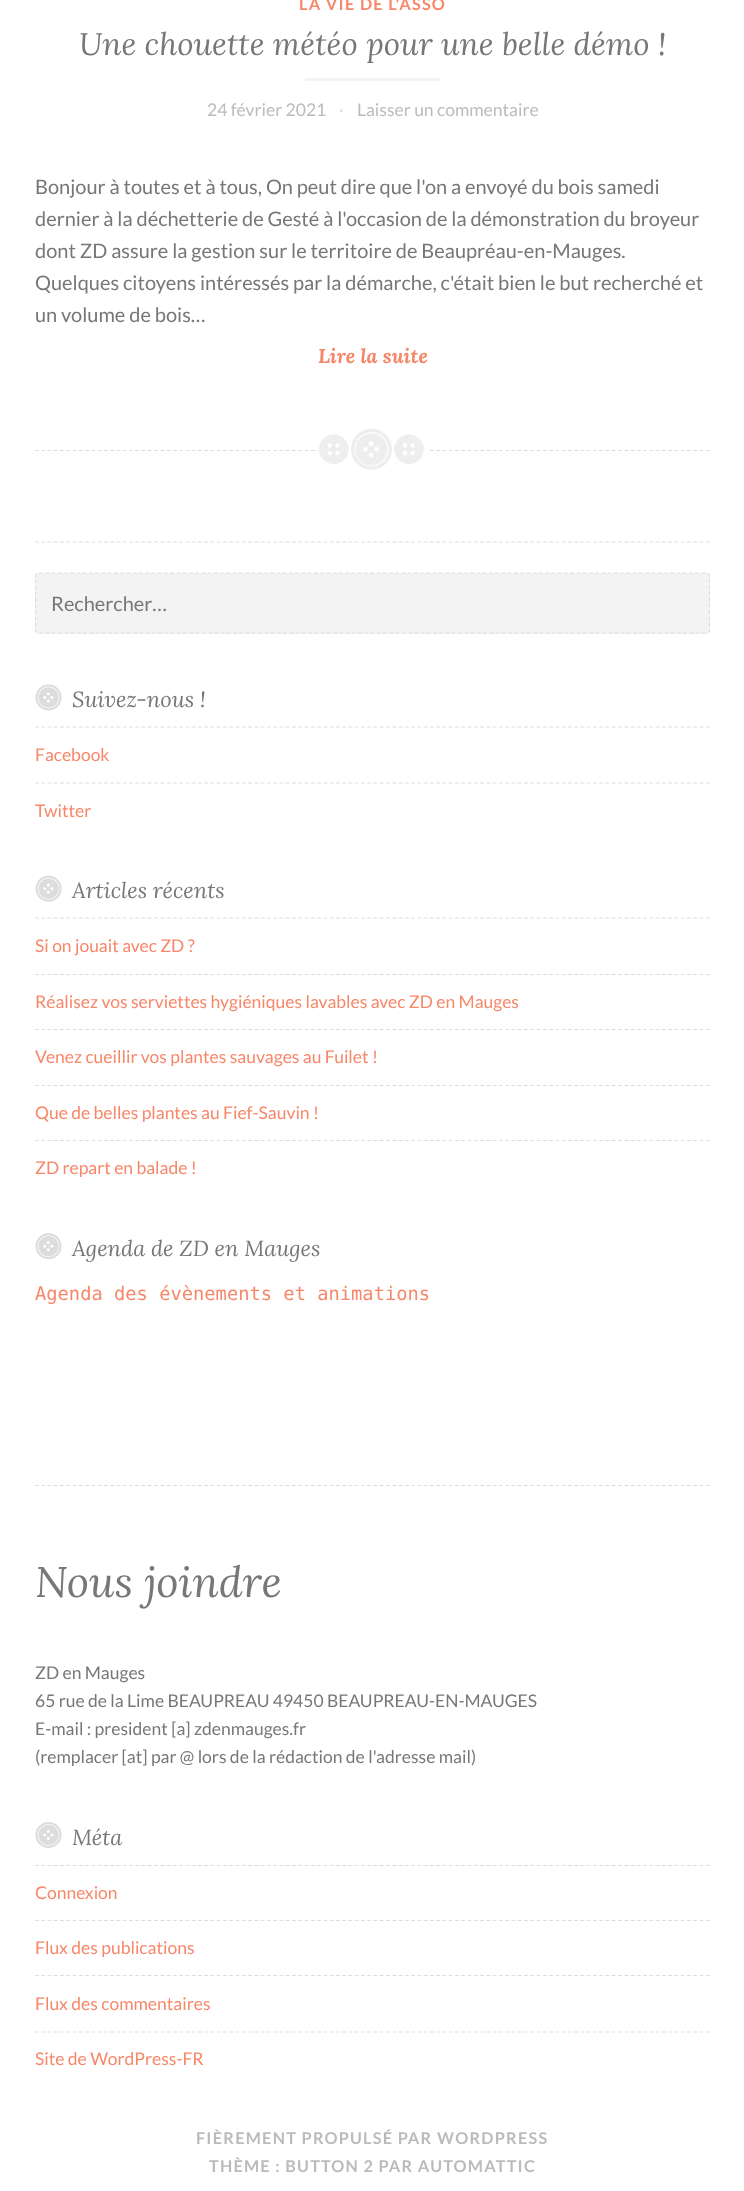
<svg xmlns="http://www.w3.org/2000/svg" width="744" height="2191">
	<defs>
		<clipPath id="clip1"><rect x="35" y="543" width="675" height="818" /></clipPath>
	</defs>
	<rect width="100%" height="100%" fill="#FFFFFF" />
	<path d="M35 450.5H710" fill="none" stroke="#DDDDDD" stroke-width="1.2" stroke-dasharray="3.75 2.52" />
	<text x="299" y="10" font-family="Lato" font-size="16.25" font-weight="700" letter-spacing="1.25" fill="#F78769">LA VIE DE L'ASSO</text>
	<text x="79" y="55" font-family="Lora" font-size="31.25" font-style="italic" fill="#777777">Une chouette météo pour une belle démo !</text>
	<rect x="305" y="78" width="135" height="3" fill="#F3F3F3" />
	<text x="207" y="116" font-family="Lato" font-size="17.5" fill="#BBBBBB">24 février 2021</text>
	<text x="339" y="116" font-family="Lato" font-size="17.5" fill="#DDDDDD">·</text>
	<text x="357" y="116" font-family="Lato" font-size="17.5" fill="#BBBBBB">Laisser un commentaire</text>
	<g font-family="Lato" font-size="20" fill="#777777">
		<text x="35" y="194">Bonjour à toutes et à tous, On peut dire que l'on a envoyé du bois samedi</text>
		<text x="35" y="226">dernier à la déchetterie de Gesté à l'occasion de la démonstration du broyeur</text>
		<text x="35" y="258">dont ZD assure la gestion sur le territoire de Beaupréau-en-Mauges.</text>
		<text x="35" y="290">Quelques citoyens intéressés par la démarche, c'était bien le but recherché et</text>
		<text x="35" y="322">un volume de bois…</text>
	</g>
	<text x="318" y="363" font-family="Lora" font-size="20" font-weight="700" font-style="italic" fill="#F78769">Lire la suite</text>
	<rect x="318" y="449" width="110" height="3" fill="#FFFFFF" />
	<image x="319" y="428" width="105" height="42" href="assets/img1.png" />
	<path d="M35 542H710" fill="none" stroke="#DDDDDD" stroke-width="1.2" stroke-dasharray="3.75 2.52" />
	<rect x="35" y="573" width="675" height="61" rx="4" fill="#F3F3F3" />
	<g clip-path="url(#clip1)">
		<path d="M39 573H706C708 573 709.5 574.5 709.5 576V630C709.5 631.5 708 633 706 633H39C37 633 35.5 631.5 35.5 630V576C35.5 574.5 37 573 39 573Z" fill="none" stroke="#DDDDDD" stroke-width="1.2" stroke-dasharray="3.75 2.5" />
	</g>
	<text x="51" y="611" font-family="Lato" font-size="20" fill="#777777">Rechercher…</text>
	<image x="35" y="684" width="27" height="27" href="assets/img2.png" />
	<text x="72" y="707" font-family="Lora" font-size="21.9" font-style="italic" fill="#777777">Suivez-nous !</text>
	<path d="M35 727H710" fill="none" stroke="#DDDDDD" stroke-width="1.2" stroke-dasharray="3.75 2.52" />
	<text x="35" y="761" font-family="Lato" font-size="17.5" fill="#F78769">Facebook</text>
	<path d="M35 783H710" fill="none" stroke="#DDDDDD" stroke-width="1.2" stroke-dasharray="3.75 2.52" />
	<text x="35" y="817" font-family="Lato" font-size="17.5" fill="#F78769">Twitter</text>
	<image x="35" y="875" width="27" height="27" href="assets/img3.png" />
	<text x="72" y="898" font-family="Lora" font-size="21.9" font-style="italic" fill="#777777">Articles récents</text>
	<path d="M35 918H710" fill="none" stroke="#DDDDDD" stroke-width="1.2" stroke-dasharray="3.75 2.52" />
	<text x="35" y="952" font-family="Lato" font-size="17.5" fill="#F78769">Si on jouait avec ZD ?</text>
	<path d="M35 974.5H710" fill="none" stroke="#DDDDDD" stroke-width="1.2" stroke-dasharray="3.75 2.52" />
	<text x="35" y="1008" font-family="Lato" font-size="17.5" fill="#F78769">Réalisez vos serviettes hygiéniques lavables avec ZD en Mauges</text>
	<path d="M35 1029.5H710" fill="none" stroke="#DDDDDD" stroke-width="1.2" stroke-dasharray="3.75 2.52" />
	<text x="35" y="1063" font-family="Lato" font-size="17.5" fill="#F78769">Venez cueillir vos plantes sauvages au Fuilet !</text>
	<path d="M35 1085.5H710" fill="none" stroke="#DDDDDD" stroke-width="1.2" stroke-dasharray="3.75 2.52" />
	<text x="35" y="1119" font-family="Lato" font-size="17.5" fill="#F78769">Que de belles plantes au Fief-Sauvin !</text>
	<path d="M35 1140.5H710" fill="none" stroke="#DDDDDD" stroke-width="1.2" stroke-dasharray="3.75 2.52" />
	<text x="35" y="1174" font-family="Lato" font-size="17.5" fill="#F78769">ZD repart en balade !</text>
	<image x="35" y="1233" width="27" height="27" href="assets/img4.png" />
	<text x="72" y="1256" font-family="Lora" font-size="21.9" font-style="italic" fill="#777777">Agenda de ZD en Mauges</text>
	<text x="35" y="1300" font-family="DejaVu Sans Mono" font-size="18.75" fill="#F78769">Agenda des évènements et animations</text>
	<path d="M35 1485.5H710" fill="none" stroke="#DDDDDD" stroke-width="1.2" stroke-dasharray="3.75 2.52" />
	<text x="35" y="1597" font-family="Lora" font-size="42.75" font-style="italic" fill="#777777">Nous joindre</text>
	<g font-family="Lato" font-size="17.5" fill="#777777">
		<text x="35" y="1679">ZD en Mauges</text>
		<text x="35" y="1707">65 rue de la Lime BEAUPREAU 49450 BEAUPREAU-EN-MAUGES</text>
		<text x="35" y="1735">E-mail : president [a] zdenmauges.fr</text>
		<text x="35" y="1763">(remplacer [at] par @ lors de la rédaction de l'adresse mail)</text>
	</g>
	<image x="35" y="1822" width="27" height="26" href="assets/img5.png" />
	<text x="72" y="1845" font-family="Lora" font-size="21.9" font-style="italic" fill="#777777">Méta</text>
	<path d="M35 1865.5H710" fill="none" stroke="#DDDDDD" stroke-width="1.2" stroke-dasharray="3.75 2.52" />
	<text x="35" y="1899" font-family="Lato" font-size="17.5" fill="#F78769">Connexion</text>
	<path d="M35 1920.5H710" fill="none" stroke="#DDDDDD" stroke-width="1.2" stroke-dasharray="3.75 2.52" />
	<text x="35" y="1954" font-family="Lato" font-size="17.5" fill="#F78769">Flux des publications</text>
	<path d="M35 1975.5H710" fill="none" stroke="#DDDDDD" stroke-width="1.2" stroke-dasharray="3.75 2.52" />
	<text x="35" y="2010" font-family="Lato" font-size="17.5" fill="#F78769">Flux des commentaires</text>
	<path d="M35 2032H710" fill="none" stroke="#DDDDDD" stroke-width="1.2" stroke-dasharray="3.75 2.52" />
	<text x="35" y="2065" font-family="Lato" font-size="17.5" fill="#F78769">Site de WordPress-FR</text>
	<g font-family="Lato" font-size="16.25" font-weight="700" letter-spacing="1.25" fill="#BBBBBB">
		<text x="196" y="2144">FIÈREMENT PROPULSÉ PAR WORDPRESS</text>
		<text x="209" y="2172">THÈME : BUTTON 2 PAR AUTOMATTIC</text>
	</g>
</svg>
